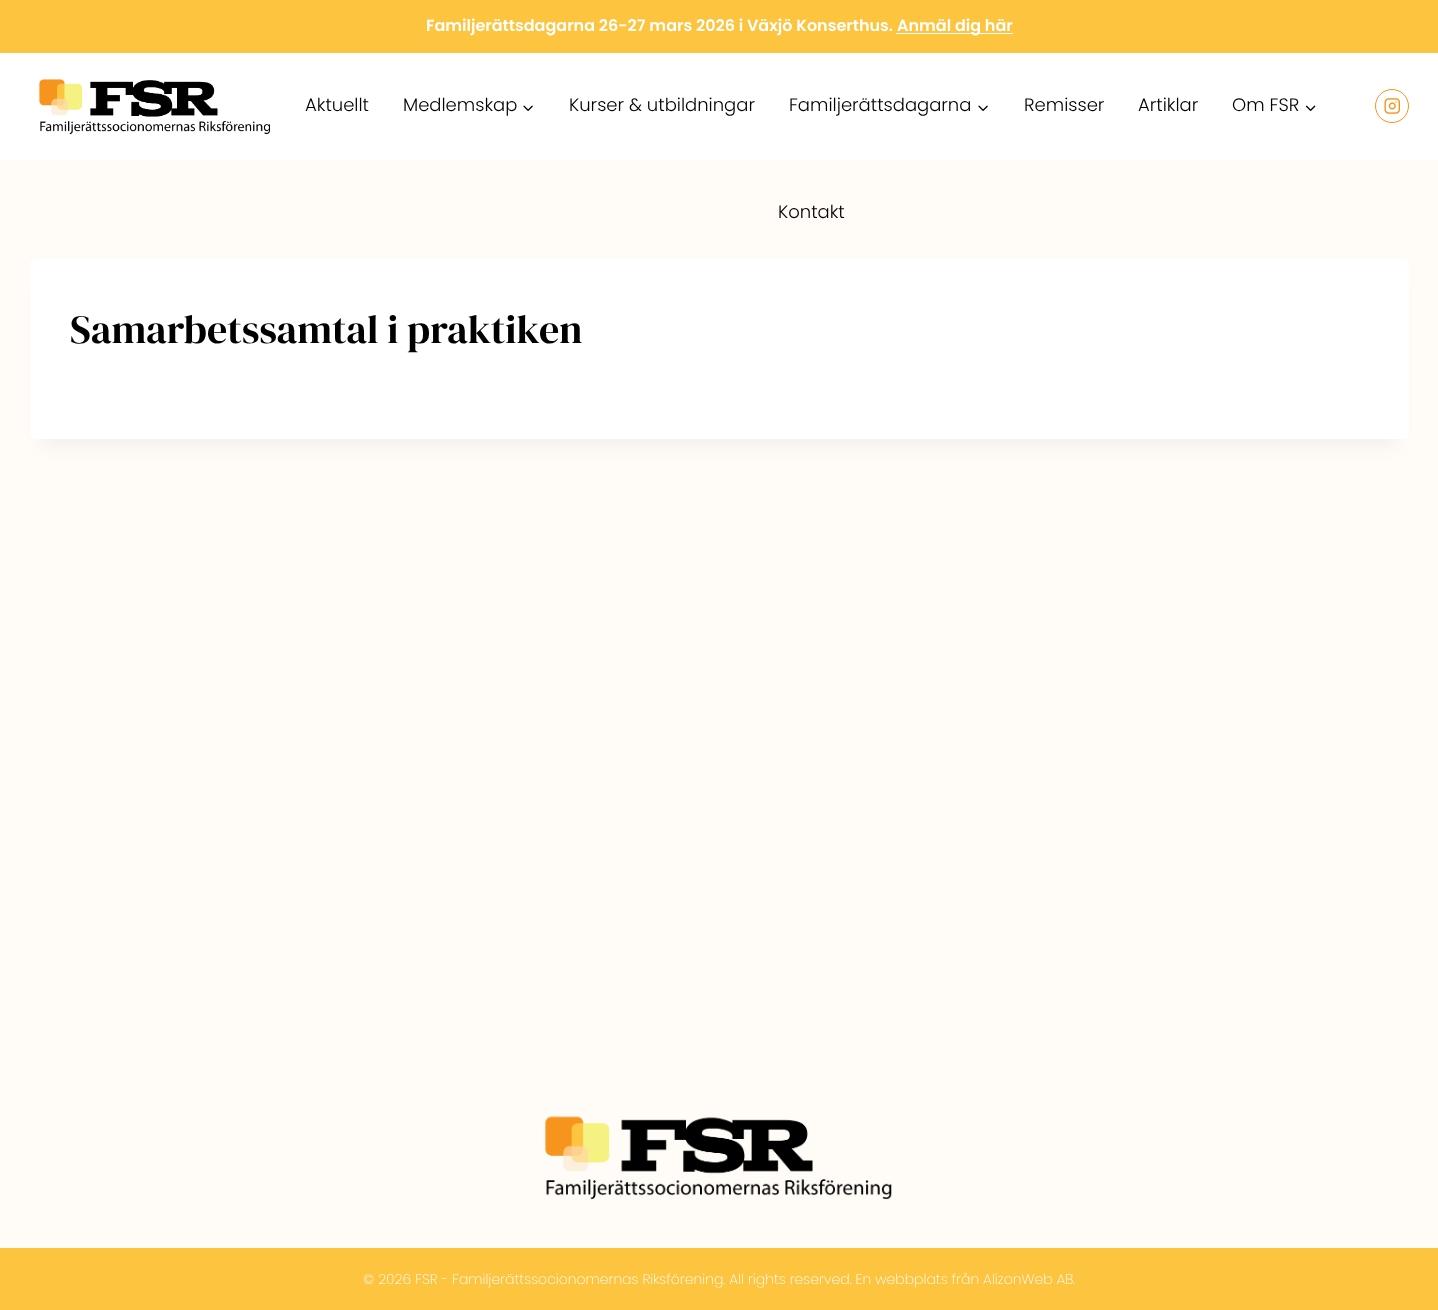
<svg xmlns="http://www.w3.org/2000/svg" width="1438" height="1310">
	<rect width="100%" height="100%" fill="#FFFBF6" />
	<rect x="0" y="0" width="1438" height="53" fill="#FCC43F" />
	<text x="426" y="31" font-family="Poppins" font-size="16" font-weight="600" fill="#FFFFFF">Familjerättsdagarna 26-27 mars 2026 i Växjö Konserthus.</text>
	<rect x="896" y="33" width="117" height="1" fill="#FFFFFF" />
	<text x="897" y="31" font-family="Poppins" font-size="16" font-weight="600" fill="#FFFFFF">Anmäl dig här</text>
	<rect x="0" y="53" width="1438" height="107" fill="#FFFFFF" />
	<image x="39" y="79" width="231" height="56" href="assets/img1.png" />
	<g font-family="Poppins" font-size="18" font-weight="300" fill="#000000">
		<text x="305" y="111">Aktuellt</text>
		<text x="403" y="111">Medlemskap</text>
	</g>
	<image x="523" y="105" width="10" height="6" href="assets/img2.png" />
	<g font-family="Poppins" font-size="18" font-weight="300" fill="#000000">
		<text x="569" y="111">Kurser &amp; utbildningar</text>
		<text x="789" y="111">Familjerättsdagarna</text>
	</g>
	<image x="978" y="105" width="10" height="6" href="assets/img2.png" />
	<g font-family="Poppins" font-size="18" font-weight="300" fill="#000000">
		<text x="1024" y="111">Remisser</text>
		<text x="1138" y="111">Artiklar</text>
		<text x="1232" y="111">Om FSR</text>
	</g>
	<image x="1305" y="105" width="11" height="6" href="assets/img3.png" />
	<text x="778" y="218" font-family="Poppins" font-size="18" font-weight="300" fill="#000000">Kontakt</text>
	<circle cx="1392" cy="106" r="16.5" fill="none" stroke="#F7941D" />
	<image x="1384" y="98" width="16" height="16" href="assets/img4.png" />
	<rect x="43" y="290" width="1353" height="155" fill="#000000" fill-opacity="0.05" filter="blur(9.5px)" />
	<rect x="30" y="259" width="1379" height="180" rx="5" fill="#FFFFFF" />
	<text x="70" y="343" font-family="DM Serif Display" font-size="40" fill="#000000">Samarbetssamtal i praktiken</text>
	<image x="545" y="1116" width="347" height="84" href="assets/img5.png" />
	<rect x="0" y="1248" width="1438" height="62" fill="#FCC43F" />
	<text x="363" y="1284" font-family="Poppins" font-size="14" font-weight="200" fill="#FFFFFF">© 2026 FSR - Familjerättssocionomernas Riksförening. All rights reserved. En webbplats från AlizonWeb AB.</text>
</svg>
